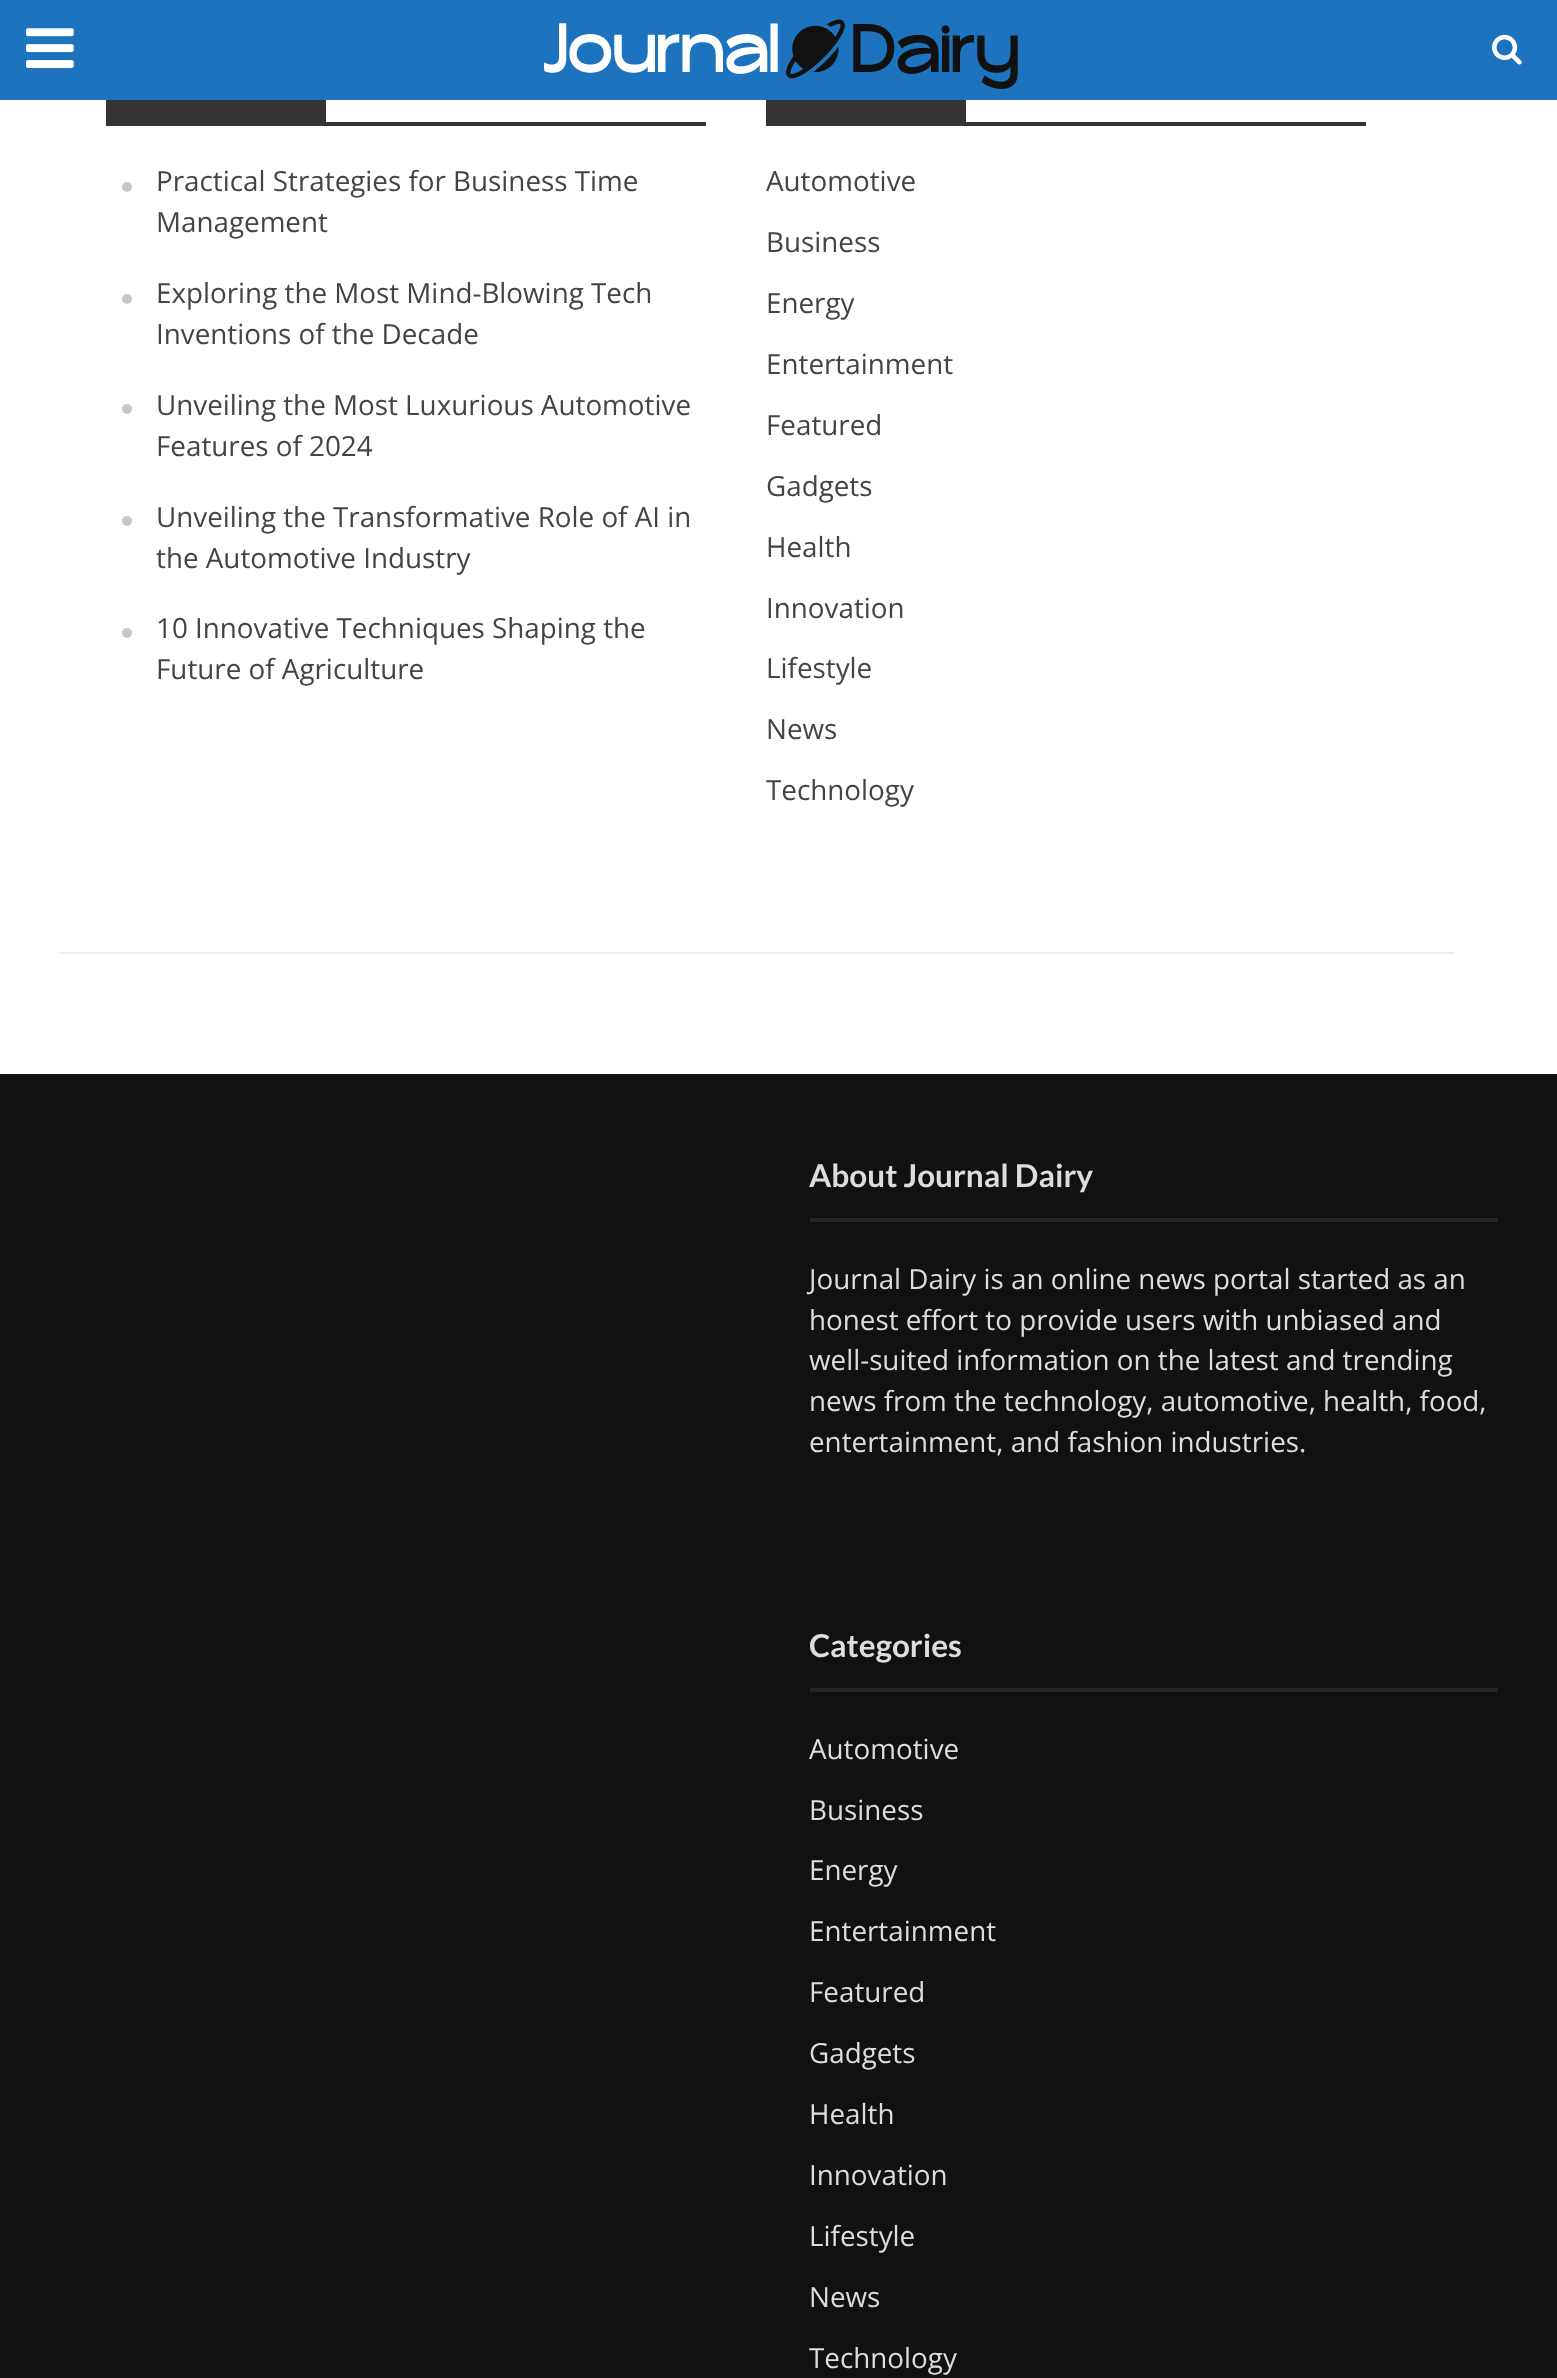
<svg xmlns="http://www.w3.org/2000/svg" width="1557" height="2378">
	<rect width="100%" height="100%" fill="#111111" />
	<rect x="-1" y="-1" width="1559" height="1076" fill="none" stroke="#161616" stroke-width="2" />
	<rect x="0" y="0" width="1557" height="100" fill="#1E73BE" />
	<image x="26" y="28" width="48" height="40" href="assets/img1.png" />
	<image x="544" y="19" width="474" height="70" href="assets/img2.png" />
	<image x="1492" y="34" width="30" height="31" href="assets/img3.png" />
	<rect x="0" y="100" width="1557" height="974" fill="#FFFFFF" />
	<rect x="60" y="952" width="1394" height="2" fill="#EEEEEE" />
	<rect x="106" y="100" width="220" height="22" fill="#333333" />
	<rect x="106" y="122" width="600" height="4" fill="#333333" />
	<circle cx="127" cy="187" r="5" fill="#C7C7C7" />
	<g font-family="Open Sans" font-size="27.8" fill="#444444">
		<text x="156" y="191">Practical Strategies for Business Time</text>
		<text x="156" y="232">Management</text>
	</g>
	<circle cx="127" cy="299" r="5" fill="#C7C7C7" />
	<g font-family="Open Sans" font-size="27.8" fill="#444444">
		<text x="156" y="303">Exploring the Most Mind-Blowing Tech</text>
		<text x="156" y="344">Inventions of the Decade</text>
	</g>
	<circle cx="127" cy="409" r="5" fill="#C7C7C7" />
	<g font-family="Open Sans" font-size="27.8" fill="#444444">
		<text x="156" y="415">Unveiling the Most Luxurious Automotive</text>
		<text x="156" y="456">Features of 2024</text>
	</g>
	<circle cx="127" cy="521" r="5" fill="#C7C7C7" />
	<g font-family="Open Sans" font-size="27.8" fill="#444444">
		<text x="156" y="527">Unveiling the Transformative Role of AI in</text>
		<text x="156" y="568">the Automotive Industry</text>
	</g>
	<circle cx="127" cy="633" r="5" fill="#C7C7C7" />
	<g font-family="Open Sans" font-size="27.8" fill="#444444">
		<text x="156" y="638">10 Innovative Techniques Shaping the</text>
		<text x="156" y="679">Future of Agriculture</text>
	</g>
	<rect x="766" y="100" width="200" height="22" fill="#333333" />
	<rect x="766" y="122" width="600" height="4" fill="#333333" />
	<g font-family="Open Sans" font-size="27.8" fill="#444444">
		<text x="766" y="191">Automotive</text>
		<text x="766" y="252">Business</text>
		<text x="766" y="313">Energy</text>
		<text x="766" y="374">Entertainment</text>
		<text x="766" y="435">Featured</text>
		<text x="766" y="496">Gadgets</text>
		<text x="766" y="557">Health</text>
		<text x="766" y="618">Innovation</text>
		<text x="766" y="678">Lifestyle</text>
		<text x="766" y="739">News</text>
		<text x="766" y="800">Technology</text>
	</g>
	<text x="809" y="1187" font-family="Lato" font-size="31.5" font-weight="700" fill="#DDDDDD">About Journal Dairy</text>
	<rect x="810" y="1218" width="688" height="4" fill="#252525" />
	<g font-family="Open Sans" font-size="27.8" fill="#DDDDDD">
		<text x="809" y="1289">Journal Dairy is an online news portal started as an</text>
		<text x="809" y="1330">honest effort to provide users with unbiased and</text>
		<text x="809" y="1370">well-suited information on the latest and trending</text>
		<text x="809" y="1411">news from the technology, automotive, health, food,</text>
		<text x="809" y="1452">entertainment, and fashion industries.</text>
	</g>
	<text x="809" y="1657" font-family="Lato" font-size="31.5" font-weight="700" fill="#DDDDDD">Categories</text>
	<rect x="810" y="1688" width="688" height="4" fill="#252525" />
	<g font-family="Open Sans" font-size="27.8" fill="#DDDDDD">
		<text x="809" y="1759">Automotive</text>
		<text x="809" y="1820">Business</text>
		<text x="809" y="1880">Energy</text>
		<text x="809" y="1941">Entertainment</text>
		<text x="809" y="2002">Featured</text>
		<text x="809" y="2063">Gadgets</text>
		<text x="809" y="2124">Health</text>
		<text x="809" y="2185">Innovation</text>
		<text x="809" y="2246">Lifestyle</text>
		<text x="809" y="2307">News</text>
		<text x="809" y="2368">Technology</text>
	</g>
</svg>
